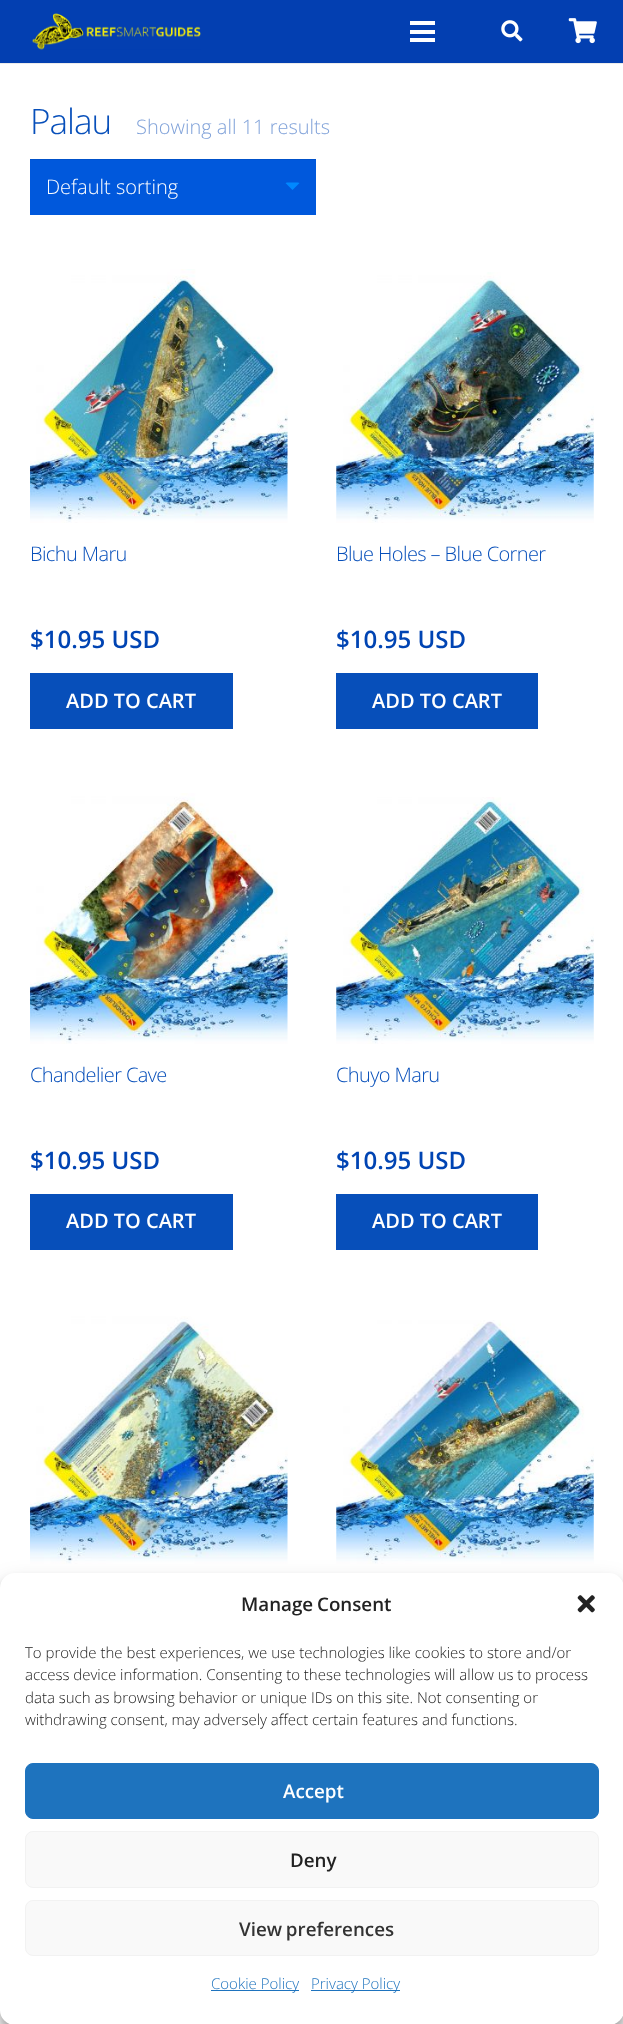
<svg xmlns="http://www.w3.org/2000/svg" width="623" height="2024">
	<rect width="100%" height="100%" fill="#FFFFFF" />
	<path d="M0 62V64H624V1V62Z" fill="#EBEBEB" />
	<rect x="0" y="0" width="623" height="63" fill="#033FB1" />
	<image x="32" y="13" width="169" height="37" href="assets/img1.png" />
	<rect x="410" y="30" width="25" height="4" fill="#FFFFFF" />
	<rect x="410" y="21" width="25" height="4" fill="#FFFFFF" />
	<rect x="410" y="38" width="25" height="4" fill="#FFFFFF" />
	<image x="501" y="20" width="22" height="22" href="assets/img2.png" />
	<image x="568" y="18" width="29" height="26" href="assets/img3.png" />
	<text x="30" y="134" font-family="Open Sans" font-size="35" font-weight="300" letter-spacing="-1" fill="#074FBA">Palau</text>
	<text x="136" y="134" font-family="Open Sans" font-size="20" font-weight="300" fill="#80A2D9">Showing all 11 results</text>
	<rect x="30" y="160" width="286" height="55" fill="#0058DC" />
	<rect x="30" y="159" width="286" height="1" fill="#0051CA" />
	<text x="46" y="194" font-family="Open Sans" font-size="20" font-weight="300" fill="#FFFFFF">Default sorting</text>
	<path d="M287.5 182.5C286.5 182.5 286 183 285.5 183L292.5 190L299.5 183C298.5 182.5 297.5 182.5 296 182.5Z" fill="#0088FF" />
	<image x="30" y="269" width="258" height="254" href="assets/img4.png" />
	<text x="30" y="561" font-family="Open Sans" font-size="20" font-weight="300" letter-spacing="-0.6" fill="#074FBA">Bichu Maru</text>
	<text x="30" y="648" font-family="Open Sans" font-size="24" font-weight="600" fill="#0044B3">$10.95 USD</text>
	<rect x="30" y="673" width="203" height="56" fill="#074FBA" />
	<text x="66" y="708" font-family="Open Sans" font-size="20" font-weight="600" fill="#FFFFFF">ADD TO CART</text>
	<image x="336" y="272" width="258" height="251" href="assets/img5.png" />
	<text x="336" y="561" font-family="Open Sans" font-size="20" font-weight="300" letter-spacing="-0.6" fill="#074FBA">Blue Holes – Blue Corner</text>
	<text x="336" y="648" font-family="Open Sans" font-size="24" font-weight="600" fill="#0044B3">$10.95 USD</text>
	<rect x="336" y="673" width="202" height="56" fill="#074FBA" />
	<text x="372" y="708" font-family="Open Sans" font-size="20" font-weight="600" fill="#FFFFFF">ADD TO CART</text>
	<image x="30" y="793" width="258" height="251" href="assets/img6.png" />
	<text x="30" y="1082" font-family="Open Sans" font-size="20" font-weight="300" letter-spacing="-0.6" fill="#074FBA">Chandelier Cave</text>
	<text x="30" y="1169" font-family="Open Sans" font-size="24" font-weight="600" fill="#0044B3">$10.95 USD</text>
	<rect x="30" y="1194" width="203" height="56" fill="#074FBA" />
	<text x="66" y="1228" font-family="Open Sans" font-size="20" font-weight="600" fill="#FFFFFF">ADD TO CART</text>
	<image x="336" y="797" width="258" height="247" href="assets/img7.png" />
	<text x="336" y="1082" font-family="Open Sans" font-size="20" font-weight="300" letter-spacing="-0.6" fill="#074FBA">Chuyo Maru</text>
	<text x="336" y="1169" font-family="Open Sans" font-size="24" font-weight="600" fill="#0044B3">$10.95 USD</text>
	<rect x="336" y="1194" width="202" height="56" fill="#074FBA" />
	<text x="372" y="1228" font-family="Open Sans" font-size="20" font-weight="600" fill="#FFFFFF">ADD TO CART</text>
	<image x="30" y="1316" width="258" height="248" href="assets/img8.png" />
	<image x="336" y="1320" width="258" height="244" href="assets/img9.png" />
	<rect x="0" y="1580" width="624" height="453" rx="15" fill="#000000" fill-opacity="0.23" filter="blur(4px)" />
	<rect x="0" y="1585" width="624" height="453" rx="15" fill="#000000" fill-opacity="0.19" filter="blur(12.5px)" />
	<rect x="0" y="1573" width="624" height="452" rx="15" fill="#FFFFFF" />
	<text x="241" y="1611" word-spacing="-1" font-family="Open Sans" font-size="18.75" font-weight="600" fill="#222222">Manage Consent</text>
	<image x="577" y="1595" width="18" height="18" href="assets/img10.png" />
	<g font-family="Open Sans" font-size="15" font-weight="300" fill="#222222">
		<text x="25" y="1658">To provide the best experiences, we use technologies like cookies to store and/or</text>
		<text x="25" y="1680">access device information. Consenting to these technologies will allow us to process</text>
		<text x="25" y="1703">data such as browsing behavior or unique IDs on this site. Not consenting or</text>
		<text x="25" y="1725">withdrawing consent, may adversely affect certain features and functions.</text>
	</g>
	<rect x="25.5" y="1763.5" width="573" height="55" rx="7.5" fill="#1E73BE" stroke="#1E73BE" />
	<text x="283" y="1798" font-family="Open Sans" font-size="18.75" font-weight="600" fill="#FFFFFF">Accept</text>
	<rect x="25.5" y="1831.5" width="573" height="56" rx="7.5" fill="#F9F9F9" stroke="#F2F2F2" />
	<text x="290" y="1867" font-family="Open Sans" font-size="18.75" font-weight="600" fill="#222222">Deny</text>
	<rect x="25.5" y="1900.5" width="573" height="55" rx="7.5" fill="#F9F9F9" stroke="#F2F2F2" />
	<text x="239" y="1936" word-spacing="-1" font-family="Open Sans" font-size="18.75" font-weight="600" fill="#333333">View preferences</text>
	<rect x="211" y="1990" width="88" height="1" fill="#1E73BE" />
	<text x="211" y="1989" font-family="Open Sans" font-size="15" font-weight="300" fill="#1E73BE">Cookie Policy</text>
	<rect x="311" y="1990" width="89" height="1" fill="#1E73BE" />
	<text x="311" y="1989" font-family="Open Sans" font-size="15" font-weight="300" fill="#1E73BE">Privacy Policy</text>
</svg>
